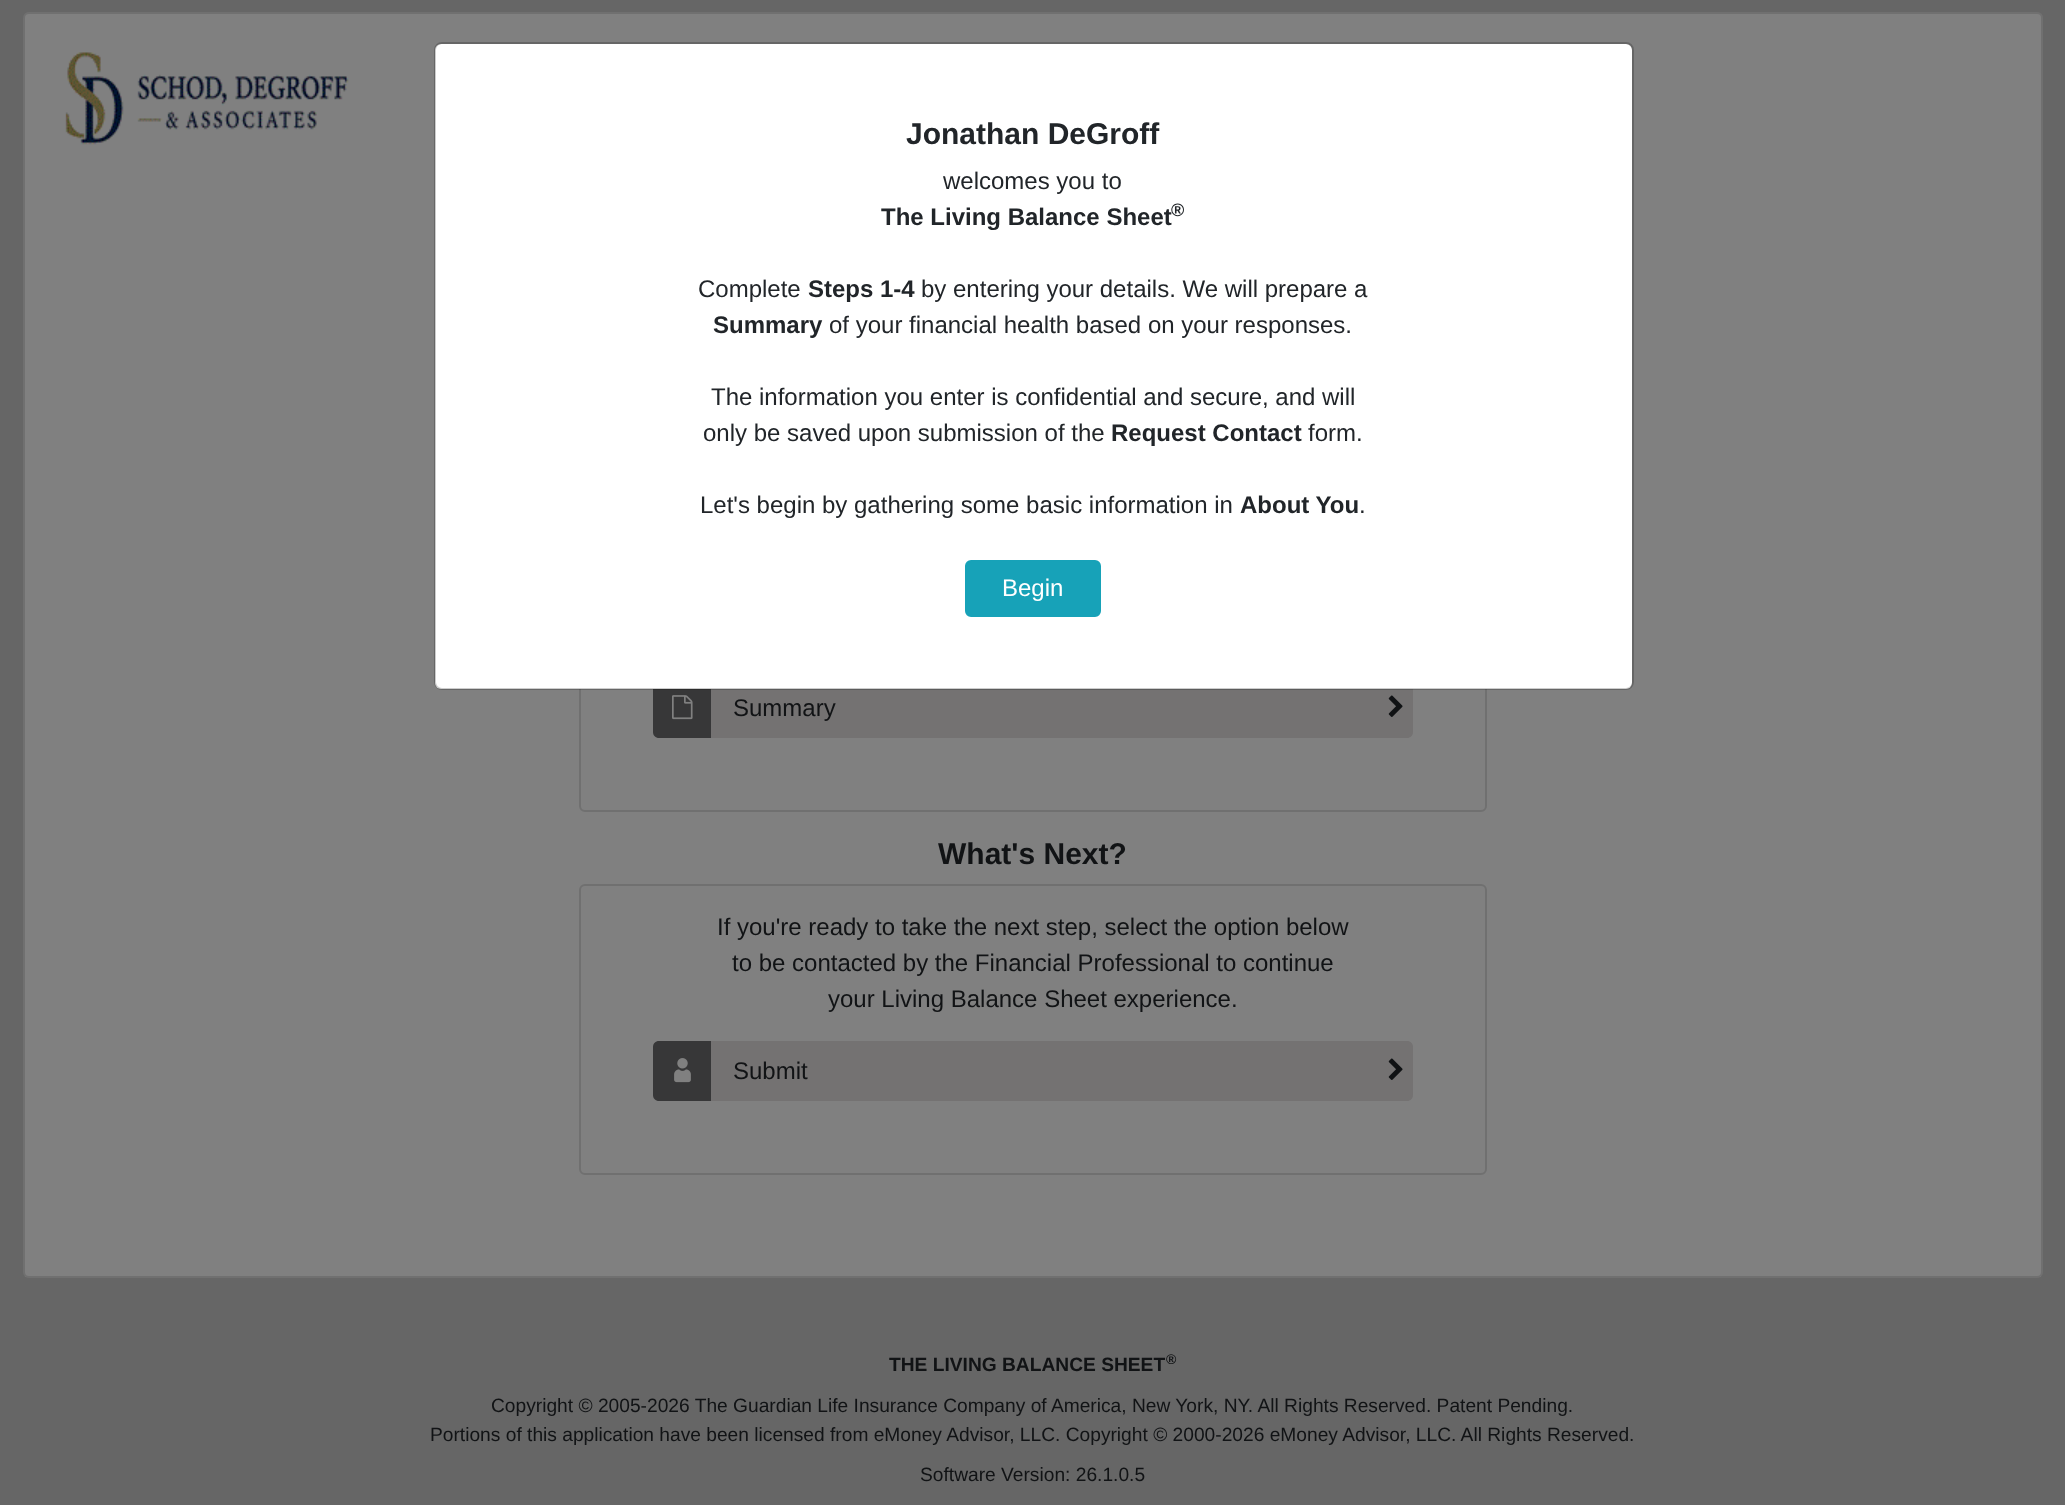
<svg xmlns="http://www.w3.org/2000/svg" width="2065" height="1505">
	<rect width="100%" height="100%" fill="#666666" />
	<rect x="23" y="12" width="2020" height="1266" rx="6" fill="#808080" />
	<rect x="24" y="13" width="2018" height="1264" rx="5" fill="none" stroke="#000000" stroke-opacity="0.12" stroke-width="2" />
	<image x="65" y="52" width="284" height="93" href="assets/img1.png" />
	<rect x="580" y="270" width="906" height="541" rx="5" fill="none" stroke="#707070" stroke-width="2" />
	<path d="M659 678H711V738H659C655.5 738 653 735.5 653 732V684C653 680.5 655.5 678 659 678Z" fill="#373738" />
	<path d="M1379 678H1407C1410.5 678 1413 680.5 1413 684V732C1413 735.5 1410.5 738 1407 738H1379Z" fill="#747272" />
	<rect x="435" y="44" width="1197" height="645" rx="6" fill="#FFFFFF" />
	<rect x="711" y="689" width="668" height="49" fill="#747272" />
	<rect x="435" y="43" width="1198" height="646" rx="7" fill="none" stroke="#000000" stroke-opacity="0.2" stroke-width="2" />
	<text x="906" y="144" font-family="Liberation Sans" font-size="30" font-weight="700" fill="#212529">Jonathan DeGroff</text>
	<text x="943" y="189" font-family="Liberation Sans" font-size="24" fill="#212529">welcomes you to</text>
	<text x="881" y="225" font-family="Liberation Sans" font-size="24" font-weight="700" fill="#212529">The Living Balance Sheet</text>
	<text x="1171" y="216" font-family="Liberation Sans" font-size="18" font-weight="700" fill="#212529">®</text>
	<text x="698" y="297" font-family="Liberation Sans" font-size="24" fill="#212529">Complete</text>
	<text x="808" y="297" font-family="Liberation Sans" font-size="24" font-weight="700" fill="#212529">Steps 1-4</text>
	<text x="921" y="297" font-family="Liberation Sans" font-size="24" fill="#212529">by entering your details. We will prepare a</text>
	<text x="713" y="333" font-family="Liberation Sans" font-size="24" font-weight="700" fill="#212529">Summary</text>
	<g font-family="Liberation Sans" font-size="24" fill="#212529">
		<text x="829" y="333">of your financial health based on your responses.</text>
		<text x="711" y="405">The information you enter is confidential and secure, and will</text>
		<text x="703" y="441">only be saved upon submission of the</text>
	</g>
	<text x="1111" y="441" font-family="Liberation Sans" font-size="24" font-weight="700" fill="#212529">Request Contact</text>
	<g font-family="Liberation Sans" font-size="24" fill="#212529">
		<text x="1308" y="441">form.</text>
		<text x="700" y="513">Let's begin by gathering some basic information in</text>
	</g>
	<text x="1240" y="513" font-family="Liberation Sans" font-size="24" font-weight="700" fill="#212529">About You</text>
	<text x="1359" y="513" font-family="Liberation Sans" font-size="24" fill="#212529">.</text>
	<rect x="966" y="561" width="134" height="55" rx="5" fill="#17A2B8" stroke="#17A2B8" stroke-width="2" />
	<text x="1002" y="596" font-family="Liberation Sans" font-size="24" fill="#FFFFFF">Begin</text>
	<image x="672" y="695" width="21" height="25" href="assets/img2.png" />
	<text x="733" y="716" font-family="Liberation Sans" font-size="24" fill="#111315">Summary</text>
	<image x="1388" y="695" width="15" height="22" href="assets/img3.png" />
	<text x="938" y="864" font-family="Liberation Sans" font-size="30" font-weight="700" fill="#111315">What's Next?</text>
	<rect x="580" y="885" width="906" height="289" rx="5" fill="none" stroke="#707070" stroke-width="2" />
	<g font-family="Liberation Sans" font-size="24" fill="#111315">
		<text x="717" y="935">If you're ready to take the next step, select the option below</text>
		<text x="732" y="971">to be contacted by the Financial Professional to continue</text>
		<text x="828" y="1007">your Living Balance Sheet experience.</text>
	</g>
	<path d="M659 1041H711V1101H659C655.5 1101 653 1098.5 653 1095V1047C653 1043.5 655.5 1041 659 1041Z" fill="#373738" />
	<image x="674" y="1058" width="17" height="25" href="assets/img4.png" />
	<rect x="711" y="1041" width="668" height="60" fill="#747272" />
	<text x="733" y="1079" font-family="Liberation Sans" font-size="24" fill="#111315">Submit</text>
	<path d="M1379 1041H1407C1410.5 1041 1413 1043.5 1413 1047V1095C1413 1098.5 1410.5 1101 1407 1101H1379Z" fill="#747272" />
	<image x="1388" y="1058" width="15" height="22" href="assets/img3.png" />
	<text x="889" y="1371" font-family="Liberation Sans" font-size="19.2" font-weight="700" fill="#111315">THE LIVING BALANCE SHEET</text>
	<text x="1166" y="1364" font-family="Liberation Sans" font-size="14" font-weight="700" fill="#111315">®</text>
	<g font-family="Liberation Sans" font-size="19.2" fill="#111315">
		<text x="491" y="1412">Copyright © 2005-2026 The Guardian Life Insurance Company of America, New York, NY. All Rights Reserved. Patent Pending.</text>
		<text x="430" y="1441">Portions of this application have been licensed from eMoney Advisor, LLC. Copyright © 2000-2026 eMoney Advisor, LLC. All Rights Reserved.</text>
		<text x="920" y="1481">Software Version: 26.1.0.5</text>
	</g>
</svg>
